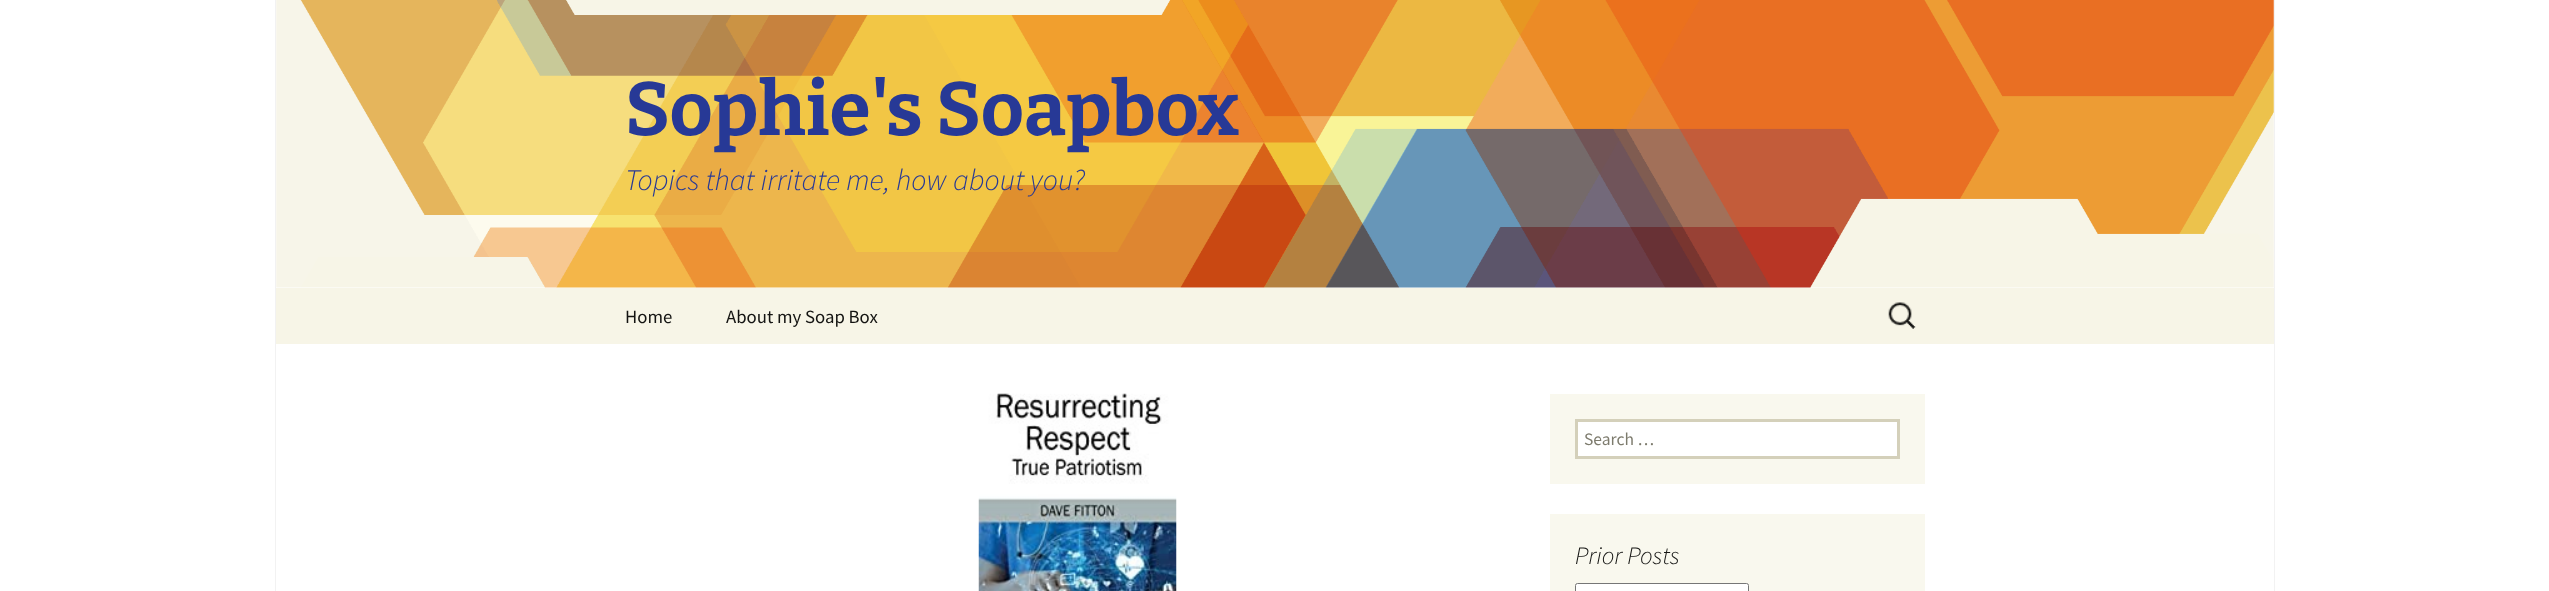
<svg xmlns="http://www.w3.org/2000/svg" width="2549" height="591">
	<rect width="100%" height="100%" fill="#FFFFFF" />
	<rect x="2274" y="0" width="1" height="591" fill="#F2F2F2" />
	<rect x="275" y="0" width="1" height="591" fill="#F2F2F2" />
	<image x="276" y="0" width="1998" height="288" href="assets/img1.png" />
	<text x="625" y="135" font-family="Bitter" font-size="75" font-weight="100" fill="#273996">Sophie's Soapbox</text>
	<text x="625" y="190" font-family="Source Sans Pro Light" font-size="30" font-weight="300" font-style="italic" fill="#273996">Topics that irritate me, how about you?</text>
	<rect x="276" y="288" width="1998" height="56" fill="#F7F5E7" />
	<g font-family="Source Sans Pro" font-size="18.75" fill="#141412">
		<text x="625" y="323">Home</text>
		<text x="726" y="323">About my Soap Box</text>
	</g>
	<image x="1888" y="302" width="28" height="27" href="assets/img2.png" />
	<image x="978" y="393" width="199" height="198" href="assets/img3.png" />
	<rect x="1550" y="394" width="375" height="90" fill="#F9F8EE" />
	<rect x="1576.5" y="420.5" width="322" height="37" fill="#FFFFFF" stroke="#D4D0BA" stroke-width="3" />
	<text x="1584" y="445" font-family="Source Sans Pro" font-size="17.5" fill="#7D7B6D">Search …</text>
	<rect x="1550" y="514" width="375" height="77" fill="#F9F8EE" />
	<text x="1575" y="564" font-family="Source Sans Pro Light" font-size="25" font-weight="300" font-style="italic" fill="#141412">Prior Posts</text>
	<rect x="1575.5" y="583.5" width="173" height="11" rx="2" fill="#FFFFFF" stroke="#767676" />
</svg>
